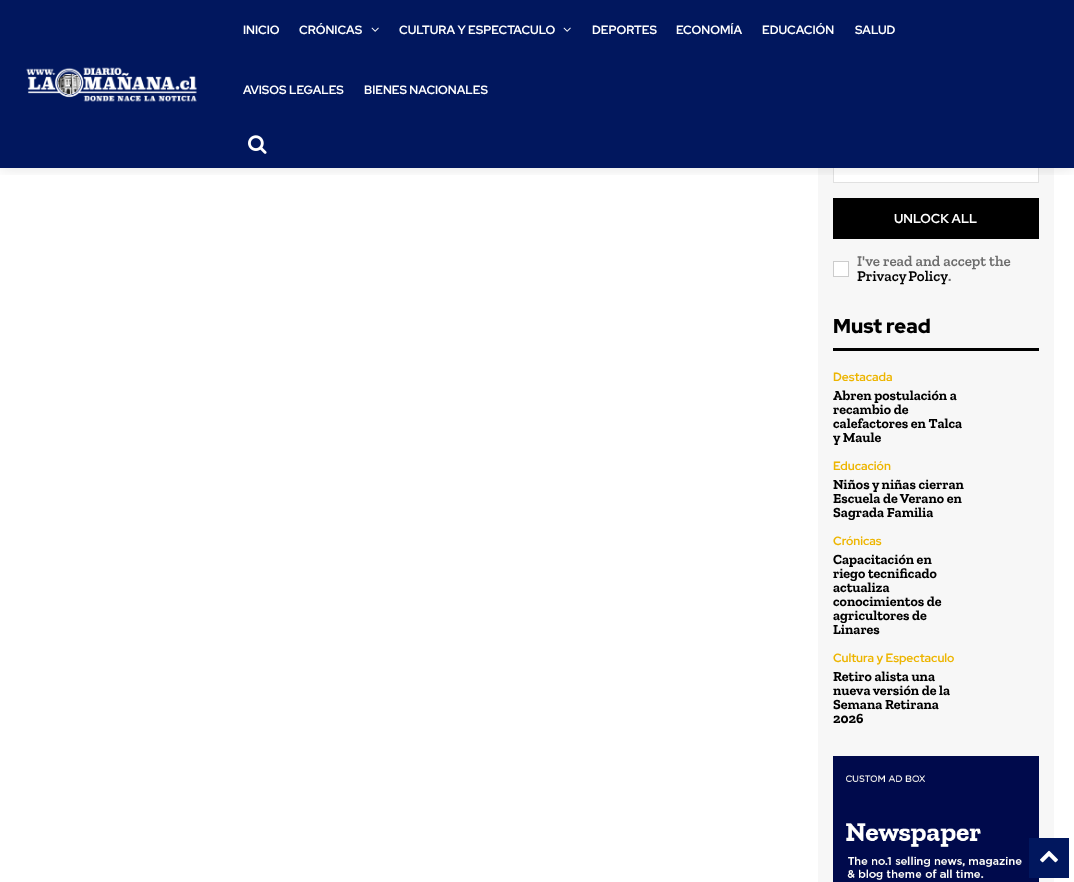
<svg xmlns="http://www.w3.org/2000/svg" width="1074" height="882">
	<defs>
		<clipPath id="clip1"><rect x="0" y="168" width="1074" height="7" /></clipPath>
	</defs>
	<rect width="100%" height="100%" fill="#FFFFFF" />
	<rect x="818" y="168" width="236" height="714" fill="#F7F7F7" />
	<rect x="834" y="168" width="204" height="14" fill="#FFFFFF" />
	<rect x="833.5" y="139.5" width="205" height="43" fill="none" stroke="#E1E1E1" />
	<rect x="0" y="0" width="1074" height="168" fill="#01175E" />
	<image x="26" y="67" width="171" height="35" href="assets/img1.png" />
	<g clip-path="url(#clip1)">
		<rect x="0" y="0" width="1074" height="168" fill="#000000" fill-opacity="0.12" filter="blur(7.5px)" />
	</g>
	<g font-family="Red Hat Display" font-size="12" font-weight="700" fill="#FFFFFF">
		<text x="243" y="34">INICIO</text>
		<text x="299" y="34">CRÓNICAS</text>
	</g>
	<image x="371" y="27" width="8" height="5" href="assets/img2.png" />
	<text x="399" y="34" font-family="Red Hat Display" font-size="12" font-weight="700" fill="#FFFFFF">CULTURA Y ESPECTACULO</text>
	<image x="563" y="27" width="8" height="5" href="assets/img2.png" />
	<g font-family="Red Hat Display" font-size="12" font-weight="700" fill="#FFFFFF">
		<text x="592" y="34">DEPORTES</text>
		<text x="676" y="34">ECONOMÍA</text>
		<text x="762" y="34">EDUCACIÓN</text>
		<text x="855" y="34">SALUD</text>
		<text x="243" y="94">AVISOS LEGALES</text>
		<text x="364" y="94">BIENES NACIONALES</text>
	</g>
	<image x="248" y="135" width="19" height="19" href="assets/img3.png" />
	<rect x="833" y="198" width="206" height="41" fill="#000000" />
	<text x="894" y="223" font-family="Red Hat Display" font-size="13" font-weight="700" fill="#FFFFFF">UNLOCK ALL</text>
	<rect x="833.5" y="261.5" width="15" height="15" fill="#FFFFFF" stroke="#CCCCCC" />
	<text x="857" y="266" font-family="Zilla Slab" font-size="15" font-weight="600" fill="#6D6D6D">I've read and accept the</text>
	<text x="857" y="281" word-spacing="-1" font-family="Zilla Slab" font-size="15" font-weight="600" fill="#000000">Privacy Policy</text>
	<text x="948" y="281" font-family="Zilla Slab" font-size="15" font-weight="600" fill="#6D6D6D">.</text>
	<rect x="833" y="348" width="206" height="3" fill="#000000" />
	<text x="833" y="333" font-family="Red Hat Display" font-size="20" font-weight="900" fill="#000000">Must read</text>
	<text x="833" y="381" font-family="Red Hat Display" font-size="12" font-weight="700" fill="#EDB500">Destacada</text>
	<g font-family="Zilla Slab" font-size="14" font-weight="700" fill="#000000">
		<text x="833" y="400">Abren postulación a</text>
		<text x="833" y="414">recambio de</text>
		<text x="833" y="428">calefactores en Talca</text>
		<text x="833" y="442">y Maule</text>
	</g>
	<text x="833" y="470" font-family="Red Hat Display" font-size="12" font-weight="700" fill="#EDB500">Educación</text>
	<g font-family="Zilla Slab" font-size="14" font-weight="700" fill="#000000">
		<text x="833" y="489">Niños y niñas cierran</text>
		<text x="833" y="503">Escuela de Verano en</text>
		<text x="833" y="517">Sagrada Familia</text>
	</g>
	<text x="833" y="545" font-family="Red Hat Display" font-size="12" font-weight="700" fill="#EDB500">Crónicas</text>
	<g font-family="Zilla Slab" font-size="14" font-weight="700" fill="#000000">
		<text x="833" y="564">Capacitación en</text>
		<text x="833" y="578">riego tecnificado</text>
		<text x="833" y="592">actualiza</text>
		<text x="833" y="606">conocimientos de</text>
		<text x="833" y="620">agricultores de</text>
		<text x="833" y="634">Linares</text>
	</g>
	<text x="833" y="662" font-family="Red Hat Display" font-size="12" font-weight="700" fill="#EDB500">Cultura y Espectaculo</text>
	<g font-family="Zilla Slab" font-size="14" font-weight="700" fill="#000000">
		<text x="833" y="681">Retiro alista una</text>
		<text x="833" y="695">nueva versión de la</text>
		<text x="833" y="709">Semana Retirana</text>
		<text x="833" y="723">2026</text>
	</g>
	<image x="833" y="756" width="206" height="126" href="assets/img4.png" />
	<rect x="1029" y="838" width="40" height="40" fill="#01175E" />
	<image x="1040" y="850" width="18" height="13" href="assets/img5.png" />
</svg>
